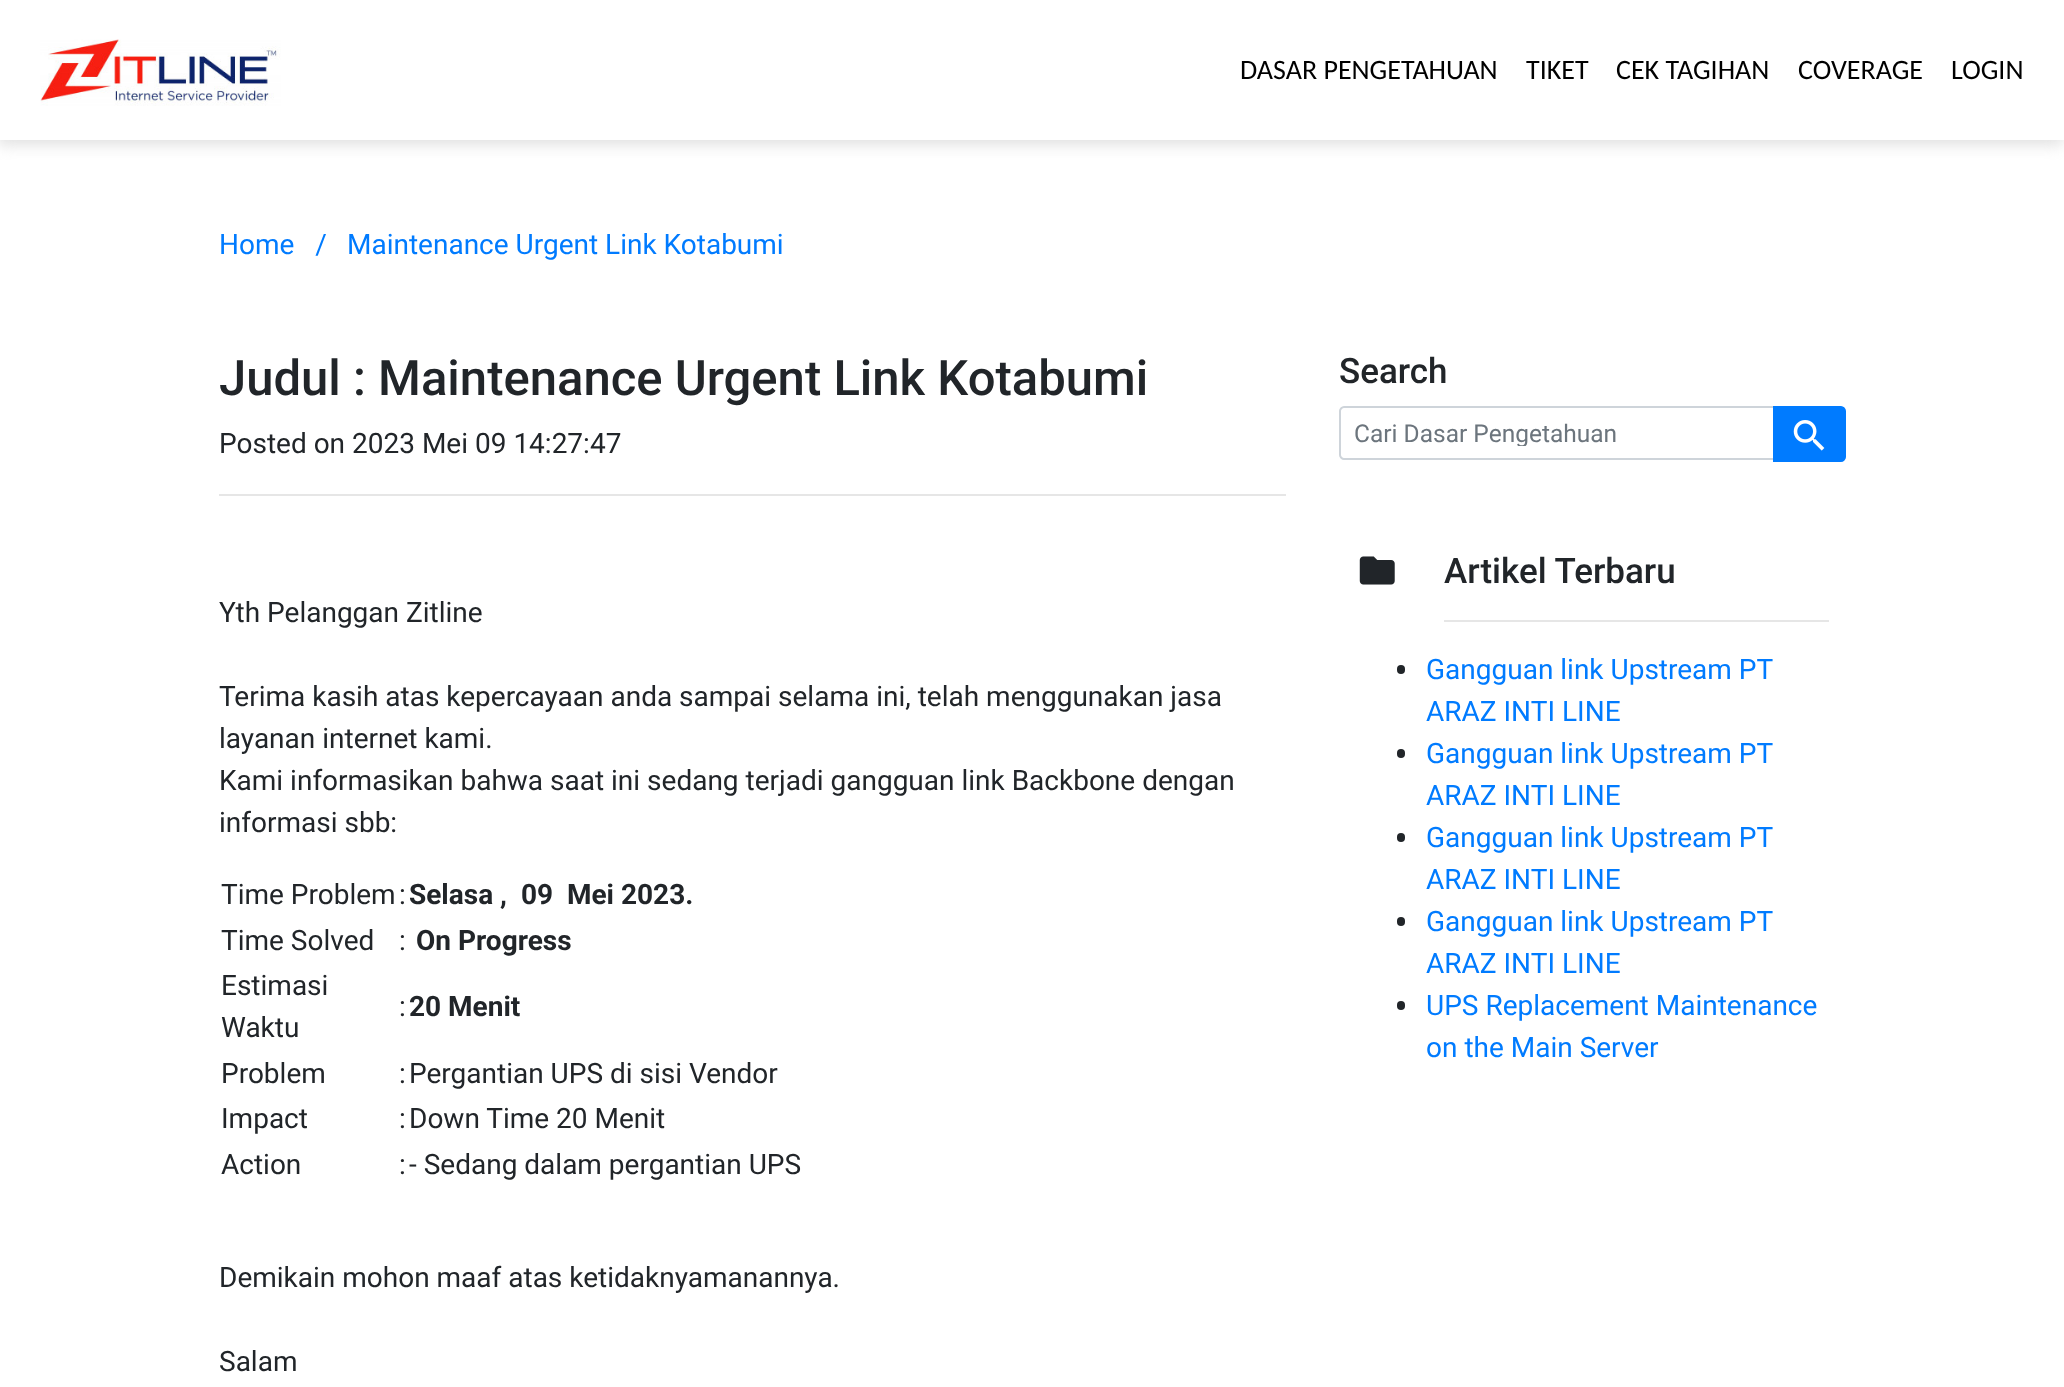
<svg xmlns="http://www.w3.org/2000/svg" width="2064" height="1387">
	<defs>
		<clipPath id="clip1"><rect x="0" y="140" width="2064" height="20" /></clipPath>
		<clipPath id="clip2"><rect x="1355" y="418" width="404" height="28" /></clipPath>
	</defs>
	<rect width="100%" height="100%" fill="#FFFFFF" />
	<g clip-path="url(#clip1)">
		<rect x="-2" y="4" width="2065" height="140" fill="#DDDDDD" filter="blur(8px)" />
	</g>
	<image x="40" y="39" width="241" height="67" href="assets/img1.png" />
	<g font-family="Carlito" font-size="28" fill="#000000">
		<text x="1240" y="79">DASAR PENGETAHUAN</text>
		<text x="1526" y="79">TIKET</text>
		<text x="1616" y="79">CEK TAGIHAN</text>
		<text x="1798" y="79">COVERAGE</text>
		<text x="1951" y="79">LOGIN</text>
	</g>
	<g font-family="Roboto" font-size="28" fill="#007BFF">
		<text x="219" y="254" xml:space="preserve">Home   /</text>
		<text x="347" y="254">Maintenance Urgent Link Kotabumi</text>
	</g>
	<text x="219" y="395" font-family="Roboto" font-size="49" font-weight="500" fill="#212529">Judul : Maintenance Urgent Link Kotabumi</text>
	<text x="219" y="453" font-family="Roboto" font-size="28" fill="#212529">Posted on 2023 Mei 09 14:27:47</text>
	<rect x="219" y="494" width="1067" height="2" fill="#E6E6E6" />
	<g font-family="Roboto" font-size="28" fill="#212529">
		<text x="219" y="622">Yth Pelanggan Zitline</text>
		<text x="219" y="706">Terima kasih atas kepercayaan anda sampai selama ini, telah menggunakan jasa</text>
		<text x="219" y="748">layanan internet kami.</text>
		<text x="219" y="790">Kami informasikan bahwa saat ini sedang terjadi gangguan link Backbone dengan</text>
		<text x="219" y="832">informasi sbb:</text>
		<text x="221" y="904">Time Problem</text>
		<text x="399" y="904">:</text>
	</g>
	<text x="409" y="904" font-family="Roboto" font-size="28" font-weight="700" fill="#212529" xml:space="preserve">Selasa ,  09  Mei 2023.</text>
	<g font-family="Roboto" font-size="28" fill="#212529">
		<text x="221" y="950">Time Solved</text>
		<text x="399" y="950">:</text>
	</g>
	<text x="416" y="950" font-family="Roboto" font-size="28" font-weight="700" fill="#212529">On Progress</text>
	<g font-family="Roboto" font-size="28" fill="#212529">
		<text x="221" y="995">Estimasi</text>
		<text x="221" y="1037">Waktu</text>
		<text x="399" y="1016">:</text>
	</g>
	<text x="409" y="1016" font-family="Roboto" font-size="28" font-weight="700" fill="#212529">20 Menit</text>
	<g font-family="Roboto" font-size="28" fill="#212529">
		<text x="221" y="1083">Problem</text>
		<text x="399" y="1083">:</text>
		<text x="409" y="1083">Pergantian UPS di sisi Vendor</text>
		<text x="221" y="1128">Impact</text>
		<text x="399" y="1128">:</text>
		<text x="409" y="1128">Down Time 20 Menit</text>
		<text x="221" y="1174">Action</text>
		<text x="399" y="1174">:</text>
		<text x="409" y="1174">- Sedang dalam pergantian UPS</text>
		<text x="219" y="1287">Demikain mohon maaf atas ketidaknyamanannya.</text>
		<text x="219" y="1371">Salam</text>
	</g>
	<text x="1339" y="383" font-family="Roboto" font-size="35" font-weight="500" fill="#212529">Search</text>
	<path d="M1344 407H1774V459H1344C1342 459 1340 457 1340 455V411C1340 409 1342 407 1344 407Z" fill="none" stroke="#CED4DA" stroke-width="2" />
	<g clip-path="url(#clip2)">
		<text x="1354" y="442" font-family="Roboto" font-size="24.5" fill="#6C757D">Cari Dasar Pengetahuan</text>
	</g>
	<path d="M1774 407H1841C1843 407 1845 409 1845 411V457C1845 459 1843 461 1841 461H1774Z" fill="#007BFF" stroke="#007BFF" stroke-width="2" />
	<image x="1793" y="420" width="32" height="31" href="assets/img2.png" />
	<image x="1359" y="556" width="36" height="29" href="assets/img3.png" />
	<text x="1444" y="583" font-family="Roboto" font-size="35" font-weight="500" fill="#212529">Artikel Terbaru</text>
	<rect x="1444" y="620" width="385" height="2" fill="#E6E6E6" />
	<rect x="1397" y="665" width="8" height="9" rx="4" fill="#212529" />
	<g font-family="Roboto" font-size="28" fill="#007BFF">
		<text x="1426" y="679">Gangguan link Upstream PT</text>
		<text x="1426" y="721">ARAZ INTI LINE</text>
	</g>
	<rect x="1397" y="749" width="8" height="9" rx="4" fill="#212529" />
	<g font-family="Roboto" font-size="28" fill="#007BFF">
		<text x="1426" y="763">Gangguan link Upstream PT</text>
		<text x="1426" y="805">ARAZ INTI LINE</text>
	</g>
	<rect x="1397" y="833" width="8" height="9" rx="4" fill="#212529" />
	<g font-family="Roboto" font-size="28" fill="#007BFF">
		<text x="1426" y="847">Gangguan link Upstream PT</text>
		<text x="1426" y="889">ARAZ INTI LINE</text>
	</g>
	<rect x="1397" y="917" width="8" height="9" rx="4" fill="#212529" />
	<g font-family="Roboto" font-size="28" fill="#007BFF">
		<text x="1426" y="931">Gangguan link Upstream PT</text>
		<text x="1426" y="973">ARAZ INTI LINE</text>
	</g>
	<rect x="1397" y="1001" width="8" height="9" rx="4" fill="#212529" />
	<g font-family="Roboto" font-size="28" fill="#007BFF">
		<text x="1426" y="1015">UPS Replacement Maintenance</text>
		<text x="1426" y="1057">on the Main Server</text>
	</g>
</svg>
